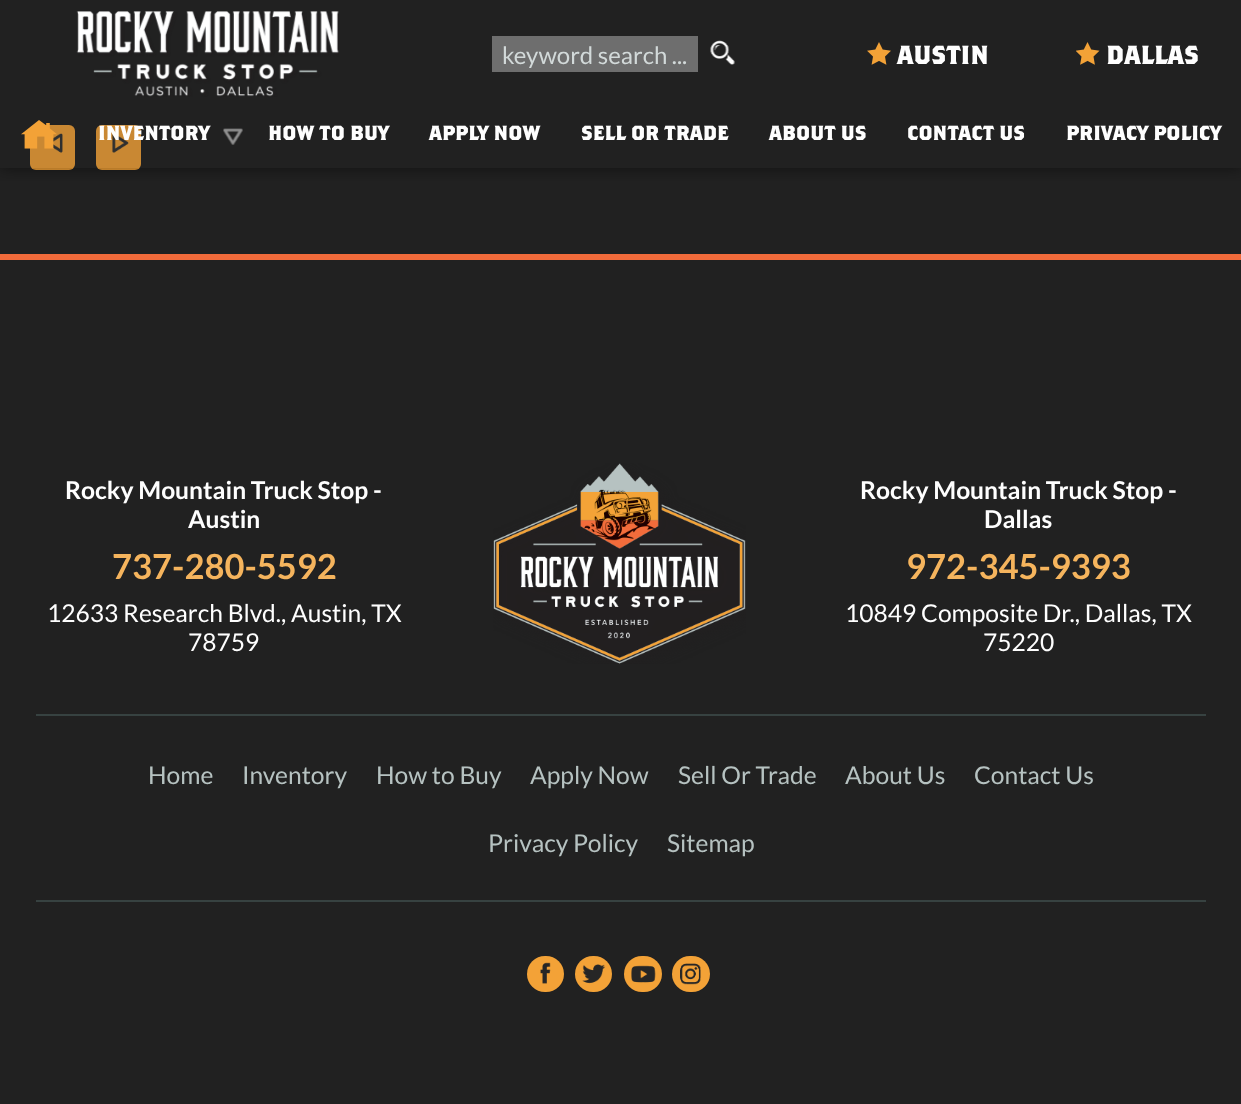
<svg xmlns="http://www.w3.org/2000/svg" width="1241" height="1104">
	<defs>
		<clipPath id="clip1"><rect x="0" y="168" width="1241" height="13" /></clipPath>
	</defs>
	<rect width="100%" height="100%" fill="#212121" />
	<rect x="30" y="125" width="45" height="45" rx="6" fill="#F3A237" />
	<image x="53" y="133" width="10" height="20" href="assets/img5.png" />
	<rect x="96" y="125" width="45" height="45" rx="6" fill="#F3A237" />
	<image x="112" y="133" width="17" height="20" href="assets/img6.png" />
	<g clip-path="url(#clip1)">
		<rect x="0" y="0" width="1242" height="168" fill="#000000" fill-opacity="0.5" filter="blur(7.5px)" />
	</g>
	<rect x="30" y="125" width="111" height="43" fill="#212121" fill-opacity="0.2" />
	<image x="76" y="11" width="263" height="86" href="assets/img1.png" />
	<rect x="492" y="36" width="206" height="36" fill="#6E6E6E" />
	<text x="502" y="64" font-family="Lato" font-size="24" fill="#D2D9D9">keyword search ...</text>
	<image x="710" y="40" width="25" height="25" href="assets/img2.png" />
	<image x="867" y="42" width="24" height="23" href="assets/img3.png" />
	<text x="897" y="64" font-family="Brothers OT" font-size="26" font-weight="700" fill="#FEFEFE">AUSTIN</text>
	<image x="1076" y="42" width="24" height="23" href="assets/img4.png" />
	<text x="1106" y="64" font-family="Brothers OT" font-size="26" font-weight="700" fill="#FEFEFE">DALLAS</text>
	<image x="21" y="120" width="36" height="29" href="assets/img7.png" />
	<text x="98" y="140" font-family="Brothers OT" font-size="20.5" font-weight="700" fill="#FEFEFE">INVENTORY</text>
	<image x="223" y="128" width="20" height="17" href="assets/img8.png" />
	<g font-family="Brothers OT" font-size="20.5" font-weight="700" fill="#FEFEFE">
		<text x="268" y="140">HOW TO BUY</text>
		<text x="429" y="140">APPLY NOW</text>
		<text x="581" y="140">SELL OR TRADE</text>
		<text x="769" y="140">ABOUT US</text>
		<text x="907" y="140">CONTACT US</text>
		<text x="1066" y="140">PRIVACY POLICY</text>
	</g>
	<rect x="0" y="254" width="1241" height="6" fill="#F26B3B" />
	<g font-family="Lato" font-size="24.6" font-weight="700" fill="#FEFEFE">
		<text x="65" y="499">Rocky Mountain Truck Stop -</text>
		<text x="188" y="528">Austin</text>
	</g>
	<text x="112" y="579" font-family="Lato" font-size="34.5" font-weight="700" fill="#F5B45D">737-280-5592</text>
	<g font-family="Lato" font-size="24.6" fill="#FEFEFE">
		<text x="47" y="622">12633 Research Blvd., Austin, TX</text>
		<text x="188" y="651">78759</text>
	</g>
	<image x="493" y="463" width="253" height="201" href="assets/img9.png" />
	<g font-family="Lato" font-size="24.6" font-weight="700" fill="#FEFEFE">
		<text x="860" y="499">Rocky Mountain Truck Stop -</text>
		<text x="984" y="528">Dallas</text>
	</g>
	<text x="906" y="579" font-family="Lato" font-size="34.5" font-weight="700" fill="#F5B45D">972-345-9393</text>
	<g font-family="Lato" font-size="24.6" fill="#FEFEFE">
		<text x="845" y="622">10849 Composite Dr., Dallas, TX</text>
		<text x="983" y="651">75220</text>
	</g>
	<rect x="36" y="714" width="1170" height="2" fill="#374241" />
	<rect x="36" y="900" width="1170" height="2" fill="#374241" />
	<g font-family="Lato" font-size="24.6" fill="#B6C2C1">
		<text x="148" y="784">Home</text>
		<text x="242" y="784">Inventory</text>
		<text x="376" y="784">How to Buy</text>
		<text x="530" y="784">Apply Now</text>
		<text x="678" y="784">Sell Or Trade</text>
		<text x="845" y="784">About Us</text>
		<text x="974" y="784">Contact Us</text>
		<text x="488" y="852">Privacy Policy</text>
		<text x="667" y="852">Sitemap</text>
	</g>
	<rect x="527" y="956" width="37" height="36" rx="18" fill="#F3A237" />
	<image x="540" y="962" width="11" height="22" href="assets/img10.png" />
	<rect x="575" y="956" width="37" height="36" rx="18" fill="#F3A237" />
	<image x="582" y="964" width="24" height="20" href="assets/img11.png" />
	<rect x="624" y="956" width="38" height="36" rx="18" fill="#F3A237" />
	<image x="631" y="965" width="25" height="18" href="assets/img12.png" />
	<rect x="672" y="956" width="38" height="36" rx="18" fill="#F3A237" />
	<image x="680" y="963" width="21" height="22" href="assets/img13.png" />
</svg>
